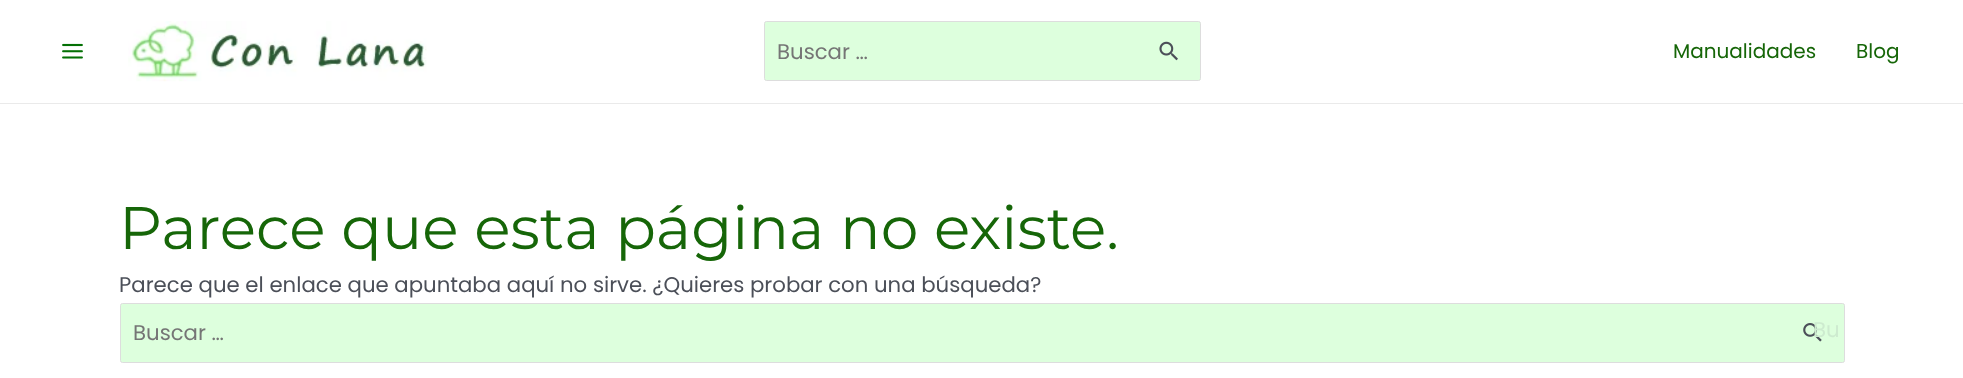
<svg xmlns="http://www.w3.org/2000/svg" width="1963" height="378">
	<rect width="100%" height="100%" fill="#FFFFFF" />
	<rect x="0" y="103" width="1963" height="1" fill="#EAEAEA" />
	<image x="62" y="43" width="21" height="16" href="assets/img1.png" />
	<image x="128" y="21" width="299" height="61" href="assets/img2.png" />
	<rect x="764.5" y="21.5" width="436" height="59" rx="2" fill="#DDFFDD" stroke="#DDDDDD" />
	<text x="777" y="59" font-family="Poppins" font-size="21.25" fill="#757575">Buscar …</text>
	<image x="1159" y="41" width="19" height="20" href="assets/img3.png" />
	<g font-family="Poppins" font-size="20" fill="#166608">
		<text x="1673" y="58">Manualidades</text>
		<text x="1856" y="58">Blog</text>
	</g>
	<text x="119" y="249" font-family="Montserrat" font-size="60" fill="#166608">Parece que esta página no existe.</text>
	<text x="119" y="292" font-family="Poppins" font-size="21.25" fill="#4B4F58">Parece que el enlace que apuntaba aquí no sirve. ¿Quieres probar con una búsqueda?</text>
	<rect x="120.5" y="303.5" width="1724" height="59" rx="2" fill="#DDFFDD" stroke="#DDDDDD" />
	<text x="133" y="340" font-family="Poppins" font-size="21.25" fill="#757575">Buscar …</text>
	<image x="1803" y="323" width="19" height="19" href="assets/img4.png" />
	<text x="1813" y="337" font-family="Poppins" font-size="21.25" fill="#CDEBCF">Bu</text>
</svg>
